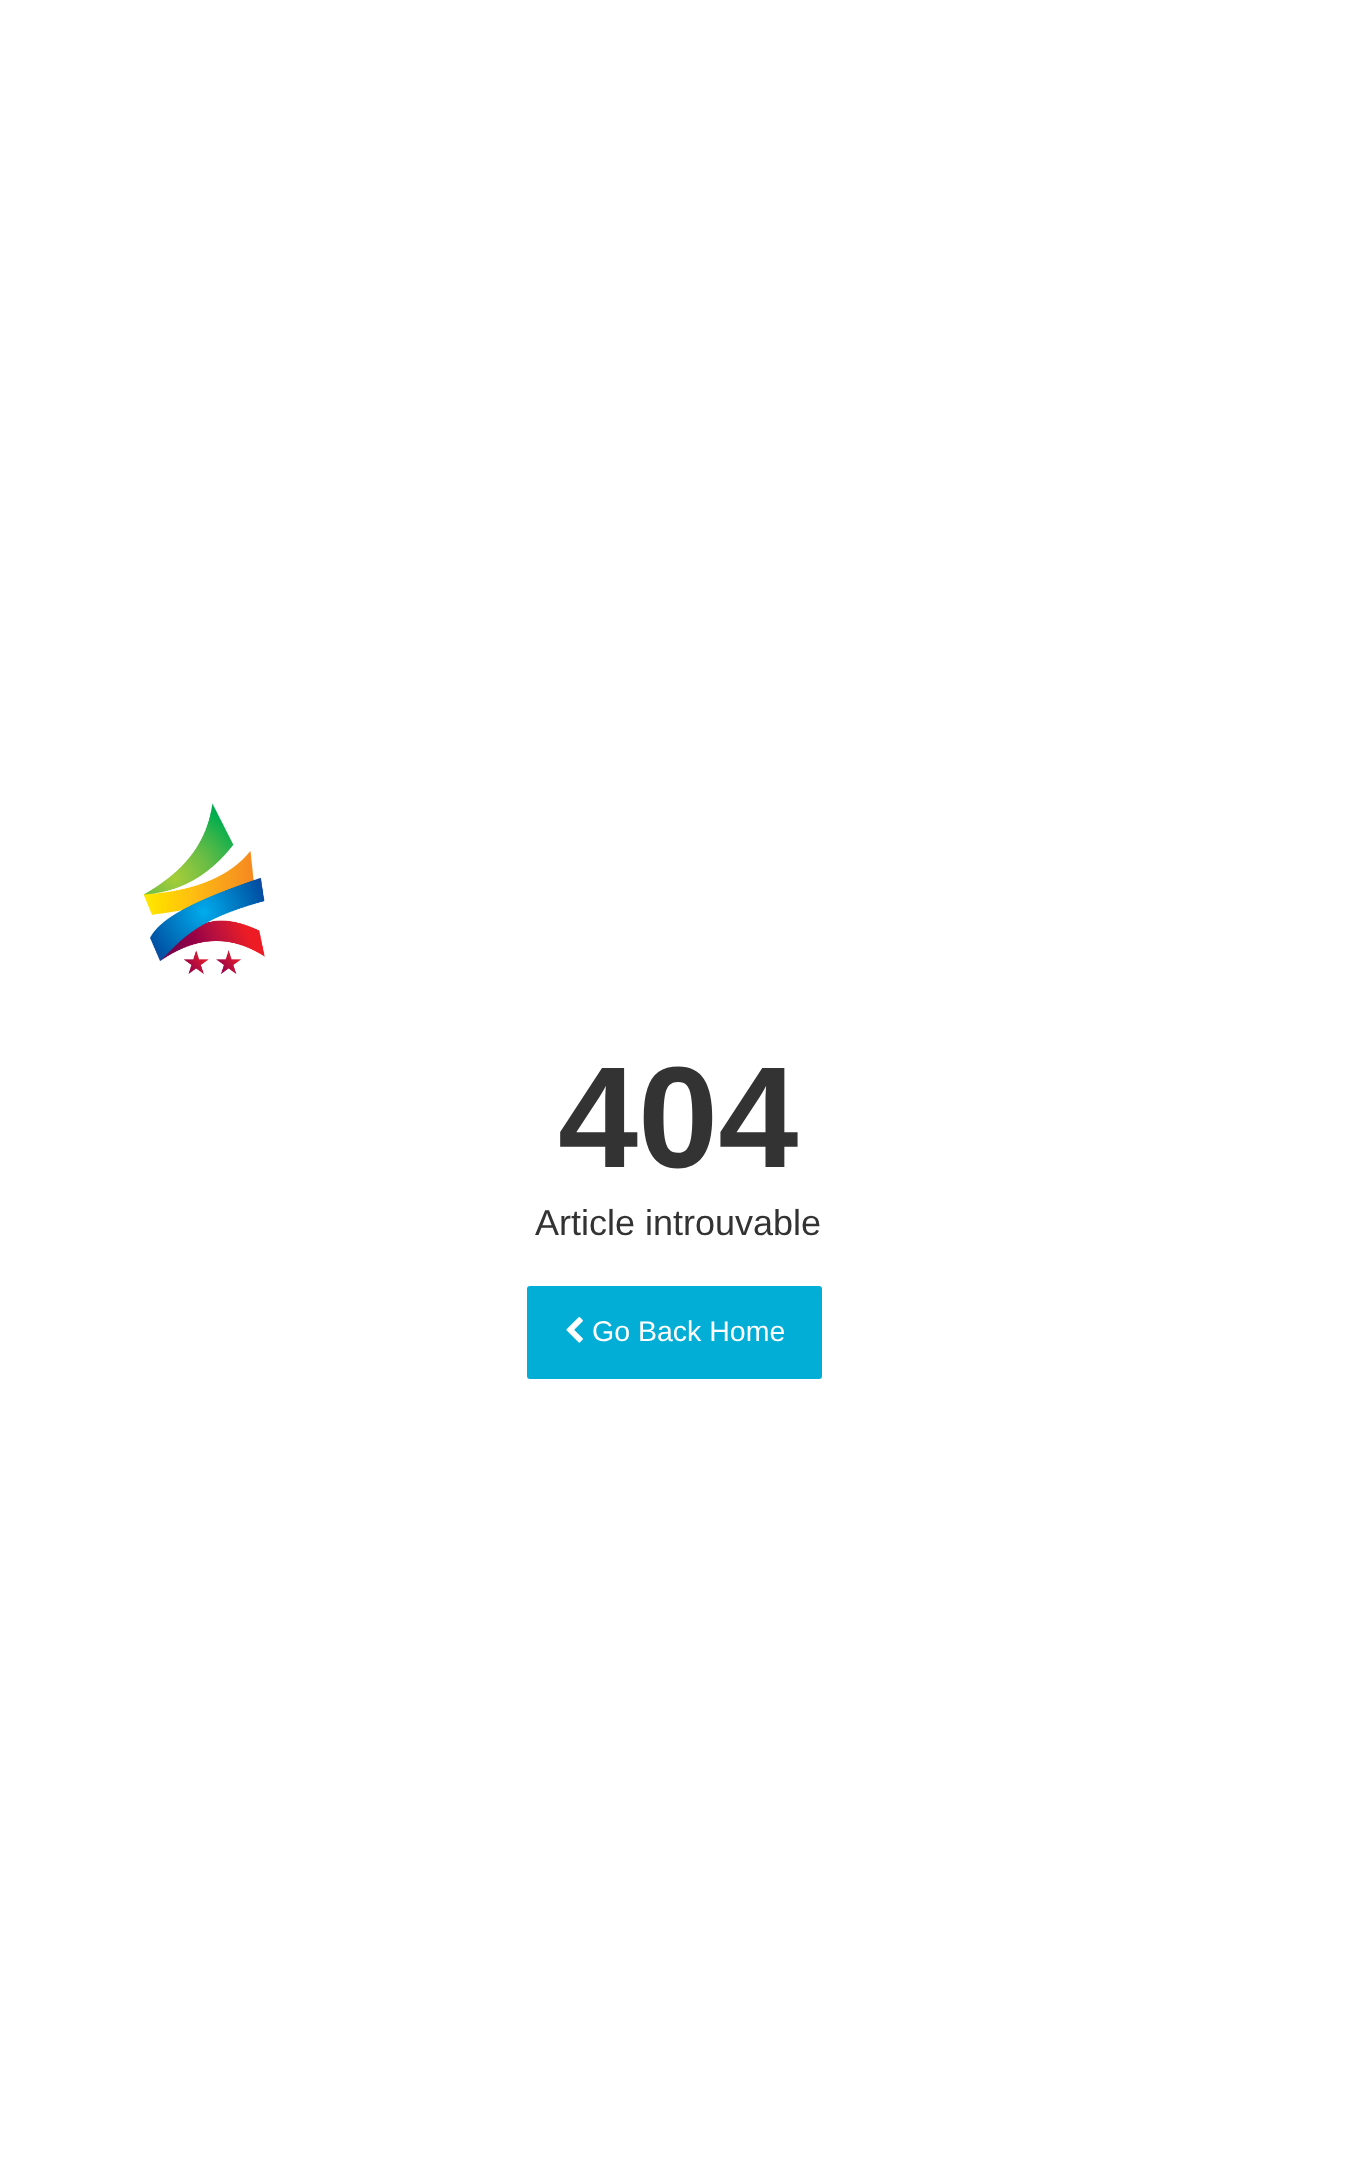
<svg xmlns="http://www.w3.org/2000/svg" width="1356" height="2177">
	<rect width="100%" height="100%" fill="#FFFFFF" />
	<image x="143" y="803" width="122" height="171" href="assets/img1.png" />
	<text x="558" y="1167" font-family="Liberation Sans" font-size="144" font-weight="700" fill="#333333">404</text>
	<text x="535" y="1235" font-family="Liberation Sans" font-size="36" fill="#333333">Article introuvable</text>
	<rect x="528" y="1287" width="293" height="91" rx="2" fill="#02AED6" stroke="#02AED6" stroke-width="2" />
	<image x="566" y="1317" width="17" height="26" href="assets/img2.png" />
	<text x="592" y="1341" font-family="Liberation Sans" font-size="28.5" fill="#FFFFFF">Go Back Home</text>
</svg>
